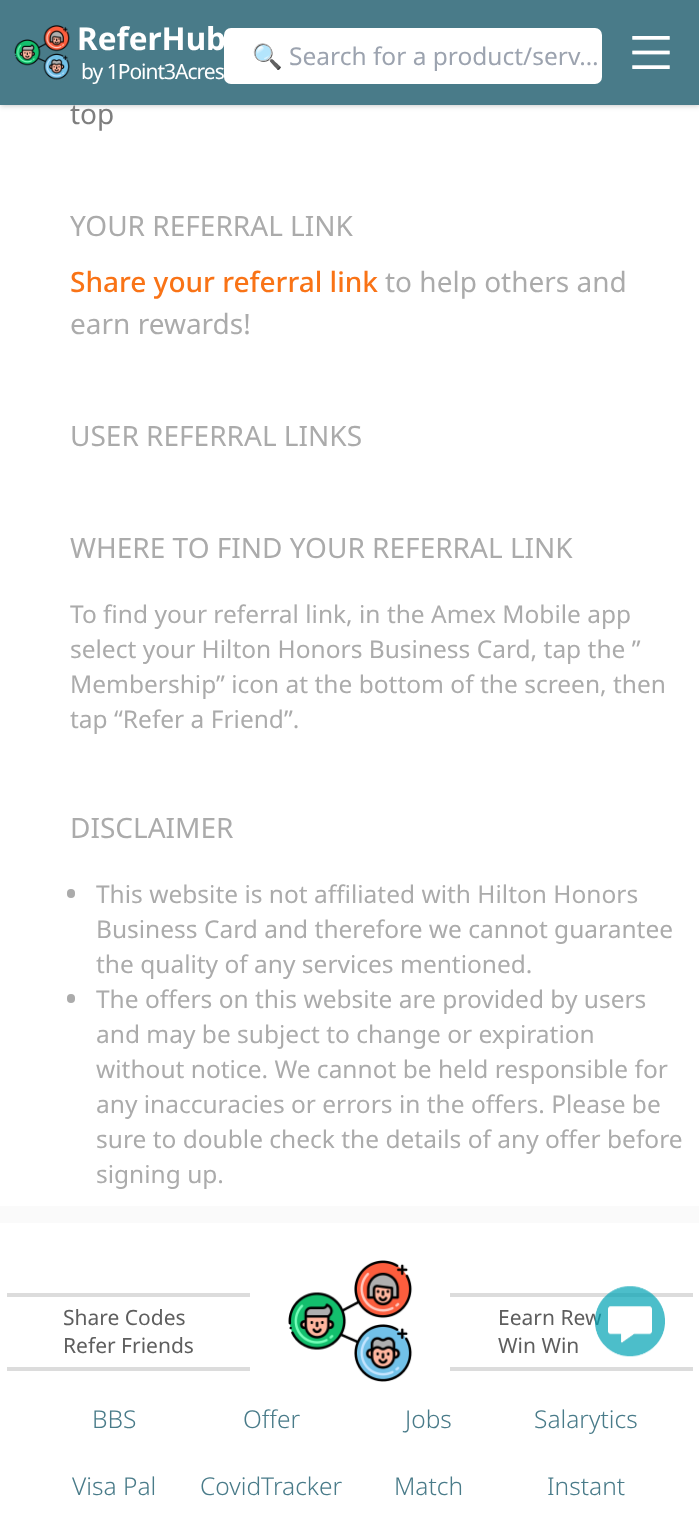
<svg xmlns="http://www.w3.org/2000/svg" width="699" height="1531">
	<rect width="100%" height="100%" fill="#FAFAFA" />
	<rect x="0" y="105" width="699" height="1101" fill="#FFFFFF" />
	<rect x="2" y="4" width="696" height="101" fill="#000000" fill-opacity="0.1" filter="blur(2px)" />
	<rect x="0" y="2" width="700" height="105" fill="#000000" fill-opacity="0.1" filter="blur(2.5px)" />
	<rect x="0" y="0" width="699" height="105" fill="#497B89" />
	<image x="14" y="25" width="56" height="55" href="assets/img1.png" />
	<text x="77" y="50" font-family="Noto Sans" font-size="31.5" font-weight="700" fill="#FFFFFF">ReferHub</text>
	<text x="81" y="79" font-family="Noto Sans" font-size="21" letter-spacing="-1" fill="#FFFFFF">by 1Point3Acres</text>
	<rect x="224" y="28" width="378" height="56" rx="7" fill="#FFFFFF" />
	<text x="252" y="65" font-family="Noto Color Emoji" font-size="24.5" fill="#9CA3AF">🔍</text>
	<text x="289" y="65" font-family="Noto Sans" font-size="24.5" fill="#9CA3AF">Search for a product/serv…</text>
	<image x="632" y="36" width="38" height="33" href="assets/img2.png" />
	<text x="70" y="124" font-family="Noto Sans" font-size="28" fill="#7E7E7E">top</text>
	<text x="70" y="236" font-family="Noto Sans" font-size="28" fill="#ABABAB">YOUR REFERRAL LINK</text>
	<text x="70" y="292" font-family="Noto Sans" font-size="28" font-weight="500" fill="#F97316">Share your referral link</text>
	<g font-family="Noto Sans" font-size="28" fill="#ABABAB">
		<text x="385" y="292">to help others and</text>
		<text x="70" y="334">earn rewards!</text>
		<text x="70" y="446">USER REFERRAL LINKS</text>
		<text x="70" y="558">WHERE TO FIND YOUR REFERRAL LINK</text>
	</g>
	<g font-family="Noto Sans" font-size="24.5" fill="#ABABAB">
		<text x="70" y="623">To find your referral link, in the Amex Mobile app</text>
		<text x="70" y="658">select your Hilton Honors Business Card, tap the ”</text>
		<text x="70" y="693">Membership” icon at the bottom of the screen, then</text>
		<text x="70" y="728">tap “Refer a Friend”.</text>
	</g>
	<text x="70" y="838" font-family="Noto Sans" font-size="28" fill="#ABABAB">DISCLAIMER</text>
	<rect x="67" y="889" width="8" height="9" rx="4" fill="#ABABAB" />
	<g font-family="Noto Sans" font-size="24.5" fill="#ABABAB">
		<text x="96" y="903">This website is not affiliated with Hilton Honors</text>
		<text x="96" y="938">Business Card and therefore we cannot guarantee</text>
		<text x="96" y="973">the quality of any services mentioned.</text>
	</g>
	<rect x="67" y="994" width="8" height="9" rx="4" fill="#ABABAB" />
	<g font-family="Noto Sans" font-size="24.5" fill="#ABABAB">
		<text x="96" y="1008">The offers on this website are provided by users</text>
		<text x="96" y="1043">and may be subject to change or expiration</text>
		<text x="96" y="1078">without notice. We cannot be held responsible for</text>
		<text x="96" y="1113">any inaccuracies or errors in the offers. Please be</text>
		<text x="96" y="1148">sure to double check the details of any offer before</text>
		<text x="96" y="1183">signing up.</text>
	</g>
	<rect x="0" y="1223" width="699" height="308" fill="#FFFFFF" />
	<rect x="450" y="1293" width="243" height="4" fill="#DCDCDC" />
	<text x="498" y="1325" font-family="Noto Sans" font-size="21" fill="#5E5E5E">Eearn Rew</text>
	<image x="595" y="1286" width="70" height="71" href="assets/img3.png" />
	<rect x="7" y="1293" width="243" height="4" fill="#DCDCDC" />
	<rect x="7" y="1367" width="243" height="4" fill="#DCDCDC" />
	<g font-family="Noto Sans" font-size="21" fill="#5E5E5E">
		<text x="63" y="1325">Share Codes</text>
		<text x="63" y="1353">Refer Friends</text>
	</g>
	<image x="288" y="1260" width="125" height="122" href="assets/img4.png" />
	<rect x="450" y="1367" width="243" height="4" fill="#DCDCDC" />
	<text x="498" y="1353" font-family="Noto Sans" font-size="21" fill="#5E5E5E">Win Win</text>
	<g font-family="Noto Sans" font-size="24.5" font-weight="300" fill="#497B89">
		<text x="92" y="1428">BBS</text>
		<text x="243" y="1428">Offer</text>
		<text x="405" y="1428">Jobs</text>
		<text x="534" y="1428">Salarytics</text>
		<text x="72" y="1495">Visa Pal</text>
		<text x="200" y="1495">CovidTracker</text>
		<text x="394" y="1495">Match</text>
		<text x="547" y="1495">Instant</text>
	</g>
</svg>
